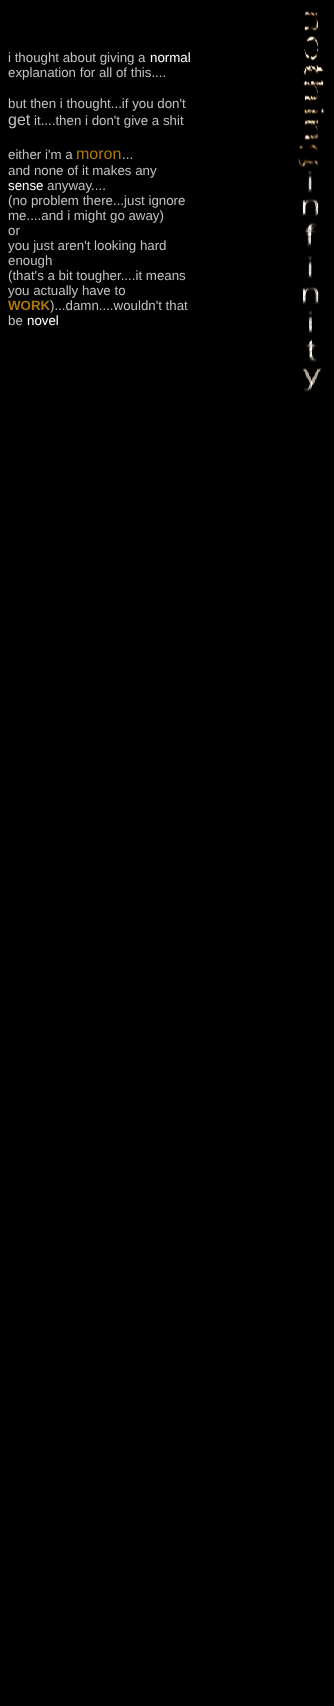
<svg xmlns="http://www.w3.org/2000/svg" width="334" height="1706">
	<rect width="100%" height="100%" fill="#000000" />
	<text x="8" y="62" font-family="Liberation Sans" font-size="13.3" fill="#C0C0C0">i thought about giving a</text>
	<text x="150" y="62" font-family="Liberation Sans" font-size="13.3" fill="#FFFFFF">normal</text>
	<g font-family="Liberation Sans" font-size="13.3" fill="#C0C0C0">
		<text x="8" y="77">explanation for all of this....</text>
		<text x="8" y="108">but then i thought...if you don't</text>
	</g>
	<text x="8" y="125" font-family="Liberation Sans" font-size="16" fill="#C0C0C0">get</text>
	<g font-family="Liberation Sans" font-size="13.3" fill="#C0C0C0">
		<text x="34" y="125">it....then i don't give a shit</text>
		<text x="8" y="159">either i'm a</text>
	</g>
	<text x="76" y="159" font-family="Liberation Sans" font-size="16" fill="#AD760E">moron</text>
	<g font-family="Liberation Sans" font-size="13.3" fill="#C0C0C0">
		<text x="122" y="159">...</text>
		<text x="8" y="175">and none of it makes any</text>
	</g>
	<text x="8" y="190" font-family="Liberation Sans" font-size="13.3" fill="#FFFFFF">sense</text>
	<g font-family="Liberation Sans" font-size="13.3" fill="#C0C0C0">
		<text x="47" y="190">anyway....</text>
		<text x="8" y="205">(no problem there...just ignore</text>
		<text x="8" y="220">me....and i might go away)</text>
		<text x="8" y="235">or</text>
		<text x="8" y="250">you just aren't looking hard</text>
		<text x="8" y="265">enough</text>
		<text x="8" y="280">(that's a bit tougher....it means</text>
		<text x="8" y="295">you actually have to</text>
	</g>
	<text x="8" y="310" font-family="Liberation Sans" font-size="13.3" font-weight="700" fill="#AD760E">WORK</text>
	<g font-family="Liberation Sans" font-size="13.3" fill="#C0C0C0">
		<text x="50" y="310">)...damn....wouldn't that</text>
		<text x="8" y="325">be</text>
	</g>
	<text x="27" y="325" font-family="Liberation Sans" font-size="13.3" fill="#FFFFFF">novel</text>
	<image x="298" y="11" width="26" height="381" href="assets/img1.png" />
</svg>
